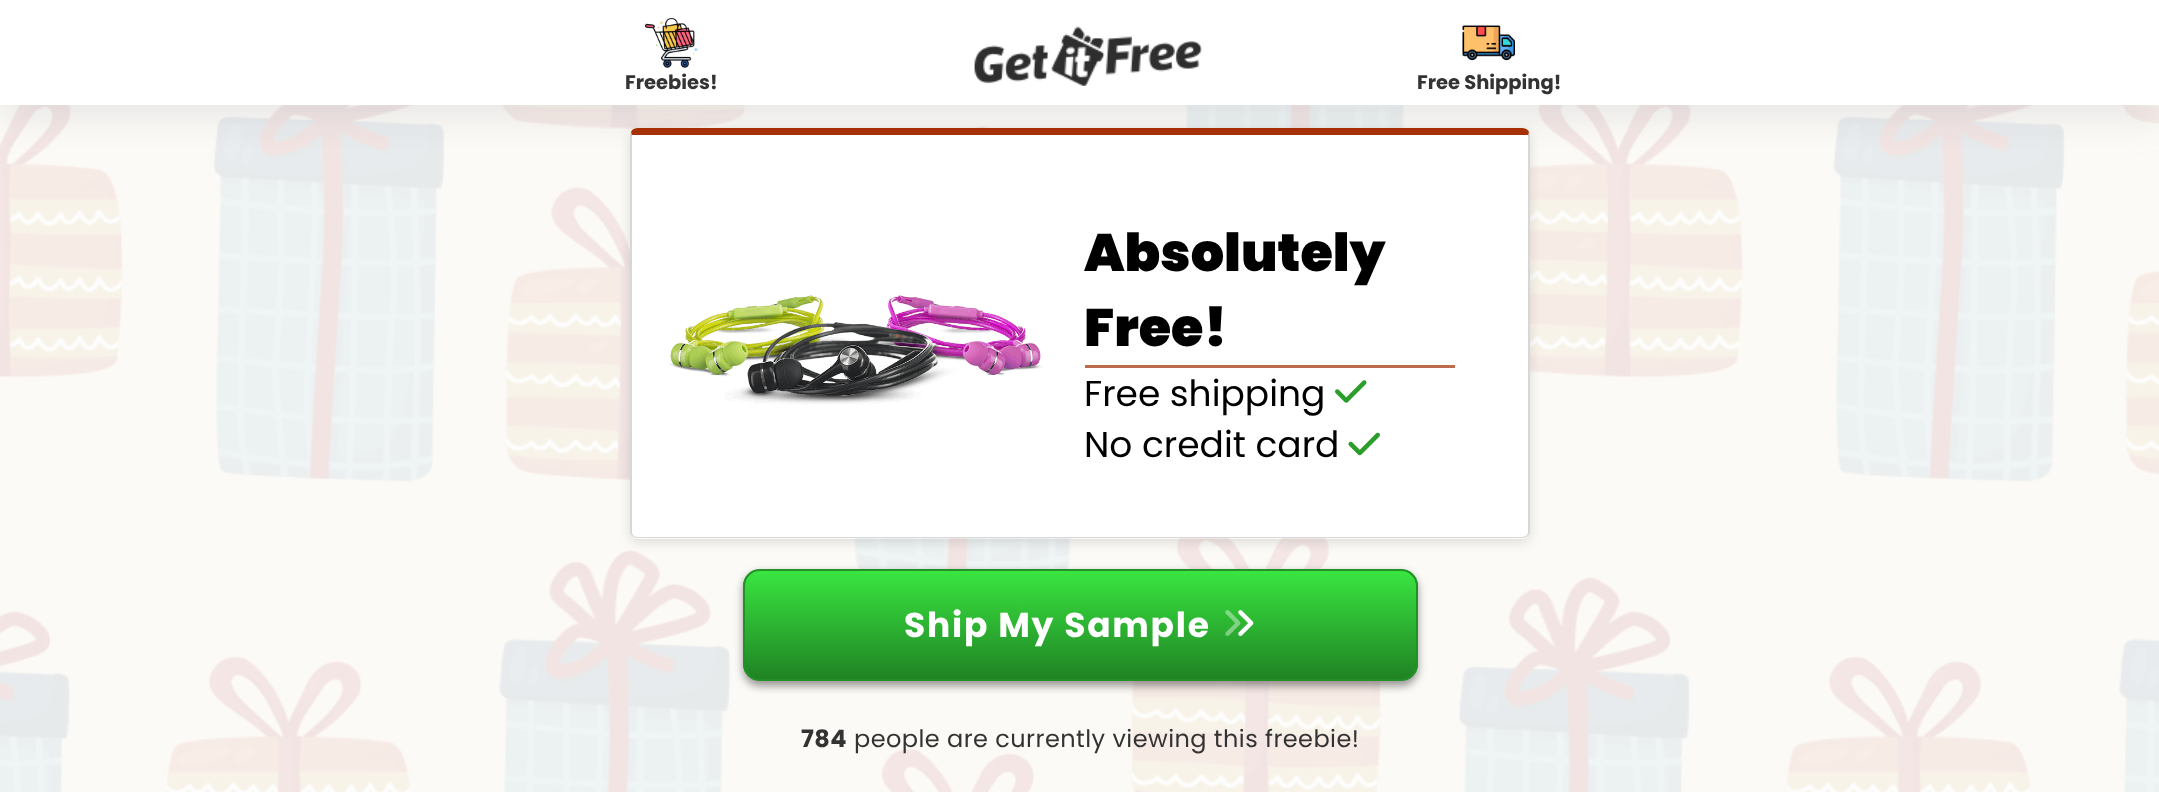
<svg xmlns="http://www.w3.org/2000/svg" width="2159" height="792">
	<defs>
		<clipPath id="clip1"><path d="M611 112H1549V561H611ZM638 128H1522C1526.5 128 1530 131.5 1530 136V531C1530 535.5 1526.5 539 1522 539H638C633.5 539 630 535.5 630 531V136C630 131.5 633.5 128 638 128Z" clip-rule="evenodd" /></clipPath>
		<clipPath id="clip2"><rect x="743" y="569" width="675" height="112" rx="17" /></clipPath>
		<linearGradient id="g1" gradientUnits="userSpaceOnUse" x1="1080" y1="570" x2="1080" y2="680"><stop offset="0" stop-color="#3AE641" /><stop offset="1" stop-color="#1F8223" /></linearGradient>
	</defs>
	<rect width="100%" height="100%" fill="#FFFFFF" />
	<image x="0" y="105" width="2159" height="687" href="assets/img1.png" />
	<rect x="0" y="12" width="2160" height="105" fill="#959DA5" fill-opacity="0.2" filter="blur(18px)" />
	<rect x="0" y="0" width="2159" height="105" fill="#FFFFFF" />
	<image x="645" y="18" width="53" height="50" href="assets/img2.png" />
	<text x="625" y="89" font-family="Poppins" font-size="19.5" font-weight="700" fill="#333333">Freebies!</text>
	<image x="974" y="26" width="228" height="61" href="assets/img3.png" />
	<image x="1462" y="25" width="53" height="36" href="assets/img4.png" />
	<text x="1417" y="89" font-family="Poppins" font-size="19.5" font-weight="700" fill="#333333">Free Shipping!</text>
	<g clip-path="url(#clip1)">
		<rect x="630" y="131" width="900" height="411" rx="8" fill="#636363" fill-opacity="0.2" filter="blur(6px)" />
	</g>
	<path d="M638 135H1528V531C1528 534 1526 537 1522 537H638C634 537 632 534 632 531V135Z" fill="#FFFFFF" />
	<path d="M638 128C635 128 632 129 631 132L632 138V135H1528V138L1529 132C1528 129 1525 128 1522 128Z" fill="#A73004" />
	<path d="M1530 531V135L1529 132L1528 138V531C1528 532 1528 534 1527 535L1528 536C1529 535 1530 533 1530 531Z" fill="#D7D7D7" />
	<path d="M1528 536C1526 537 1524 538 1522 538H638C636 538 634 537 632 536L633 535C634 536 636 537 638 537H1522C1524 537 1526 536 1527 535Z" fill="#D7D7D7" />
	<path d="M630 135V531C630 533 631 535 632 536L633 535C632 534 632 532 632 531V138L631 132Z" fill="#D7D7D7" />
	<image x="668" y="295" width="375" height="110" href="assets/img5.png" />
	<g font-family="Poppins" font-size="52.5" font-weight="900" fill="#000000">
		<text x="1084" y="271">Absolutely</text>
		<text x="1084" y="346">Free!</text>
	</g>
	<rect x="1085" y="365" width="370" height="3" fill="#BB6C4F" />
	<text x="1084" y="406" font-family="Poppins" font-size="36" fill="#000000">Free shipping</text>
	<image x="1335" y="380" width="32" height="23" href="assets/img6.png" />
	<text x="1084" y="457" font-family="Poppins" font-size="36" fill="#000000">No credit card</text>
	<image x="1348" y="432" width="32" height="24" href="assets/img7.png" />
	<rect x="743" y="573" width="675" height="113" rx="17" fill="#000000" fill-opacity="0.4" filter="blur(4.5px)" />
	<g clip-path="url(#clip2)">
		<rect x="743" y="570" width="675" height="110" fill="url(#g1)" />
	</g>
	<rect x="744" y="570" width="673" height="110" rx="16" fill="none" stroke="#239028" stroke-width="2" />
	<text x="904" y="637" font-family="Poppins" font-size="34.5" font-weight="700" letter-spacing="1.75" fill="#FFFFFF">Ship My Sample</text>
	<image x="1238" y="610" width="16" height="26" href="assets/img9.png" />
	<image x="1225" y="610" width="16" height="26" href="assets/img8.png" />
	<text x="801" y="747" font-family="Poppins" font-size="24" font-weight="700" letter-spacing="0.45" fill="#333333">784</text>
	<text x="854" y="747" font-family="Poppins" font-size="24" letter-spacing="0.45" fill="#333333">people are currently viewing this freebie!</text>
</svg>
